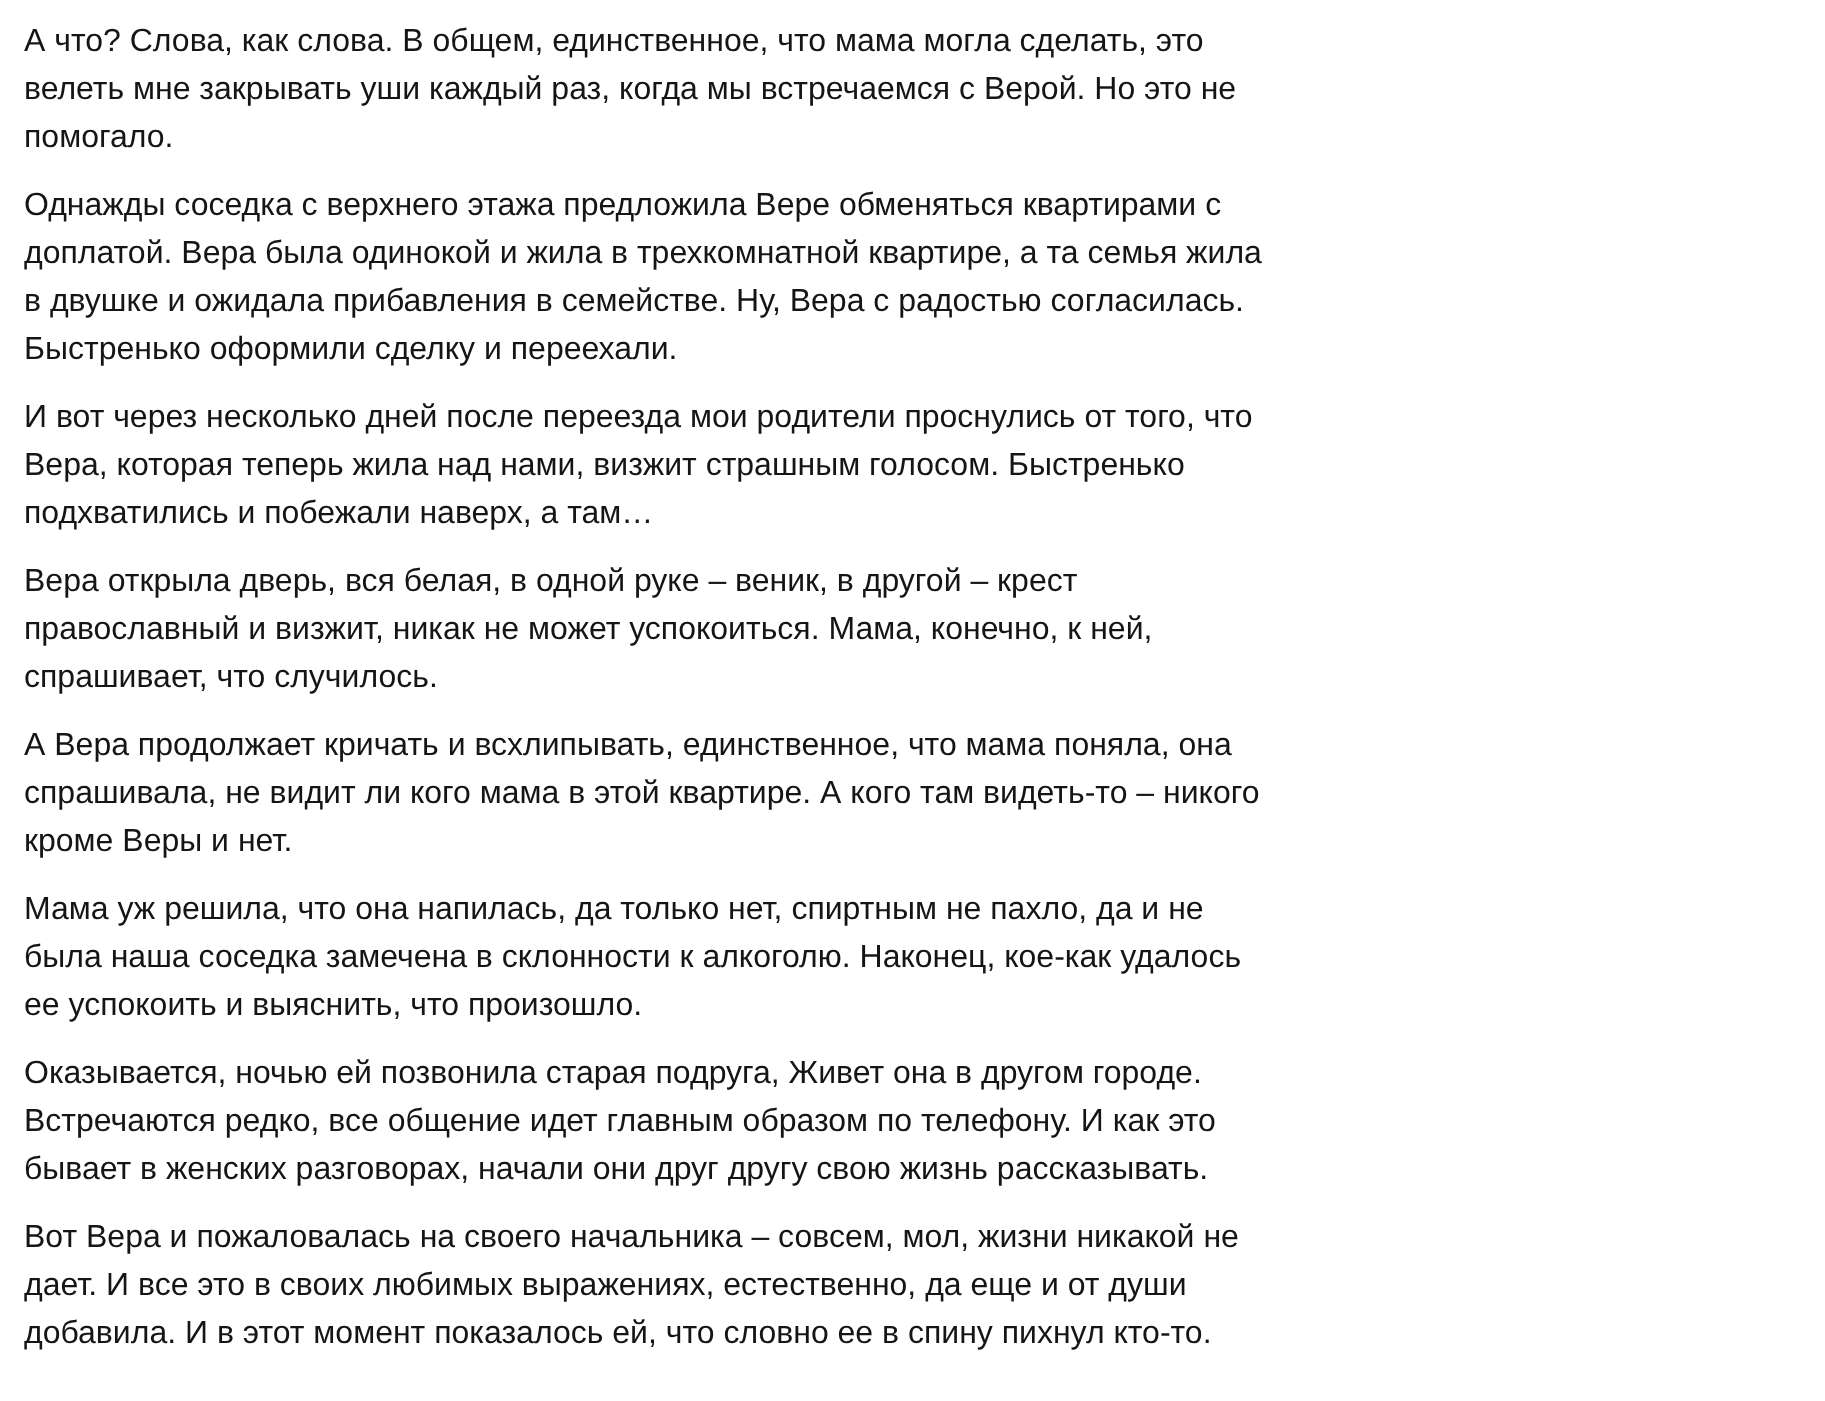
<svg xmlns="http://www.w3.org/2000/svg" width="1825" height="1401">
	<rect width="100%" height="100%" fill="#FFFFFF" />
	<g font-family="Liberation Sans" font-size="32" fill="#151515">
		<text x="24" y="51">А что? Слова, как слова. В общем, единственное, что мама могла сделать, это</text>
		<text x="24" y="99">велеть мне закрывать уши каждый раз, когда мы встречаемся с Верой. Но это не</text>
		<text x="24" y="147">помогало.</text>
		<text x="24" y="215">Однажды соседка с верхнего этажа предложила Вере обменяться квартирами с</text>
		<text x="24" y="263">доплатой. Вера была одинокой и жила в трехкомнатной квартире, а та семья жила</text>
		<text x="24" y="311">в двушке и ожидала прибавления в семействе. Ну, Вера с радостью согласилась.</text>
		<text x="24" y="359">Быстренько оформили сделку и переехали.</text>
		<text x="24" y="427">И вот через несколько дней после переезда мои родители проснулись от того, что</text>
		<text x="24" y="475">Вера, которая теперь жила над нами, визжит страшным голосом. Быстренько</text>
		<text x="24" y="523">подхватились и побежали наверх, а там…</text>
		<text x="24" y="591">Вера открыла дверь, вся белая, в одной руке – веник, в другой – крест</text>
		<text x="24" y="639">православный и визжит, никак не может успокоиться. Мама, конечно, к ней,</text>
		<text x="24" y="687">спрашивает, что случилось.</text>
		<text x="24" y="755">А Вера продолжает кричать и всхлипывать, единственное, что мама поняла, она</text>
		<text x="24" y="803">спрашивала, не видит ли кого мама в этой квартире. А кого там видеть-то – никого</text>
		<text x="24" y="851">кроме Веры и нет.</text>
		<text x="24" y="919">Мама уж решила, что она напилась, да только нет, спиртным не пахло, да и не</text>
		<text x="24" y="967">была наша соседка замечена в склонности к алкоголю. Наконец, кое-как удалось</text>
		<text x="24" y="1015">ее успокоить и выяснить, что произошло.</text>
		<text x="24" y="1083">Оказывается, ночью ей позвонила старая подруга, Живет она в другом городе.</text>
		<text x="24" y="1131">Встречаются редко, все общение идет главным образом по телефону. И как это</text>
		<text x="24" y="1179">бывает в женских разговорах, начали они друг другу свою жизнь рассказывать.</text>
		<text x="24" y="1247">Вот Вера и пожаловалась на своего начальника – совсем, мол, жизни никакой не</text>
		<text x="24" y="1295">дает. И все это в своих любимых выражениях, естественно, да еще и от души</text>
		<text x="24" y="1343">добавила. И в этот момент показалось ей, что словно ее в спину пихнул кто-то.</text>
	</g>
</svg>
